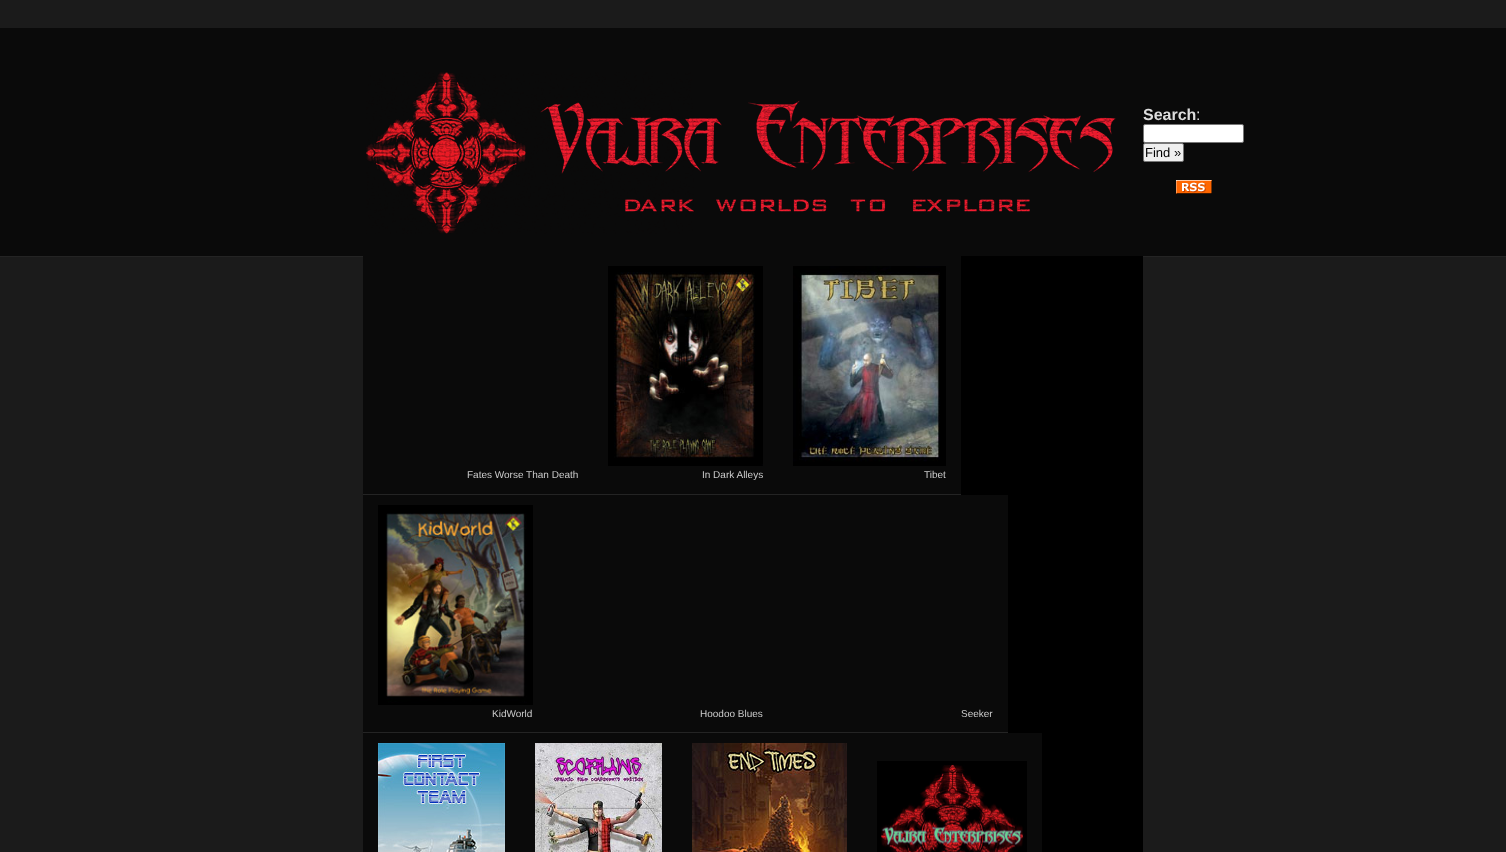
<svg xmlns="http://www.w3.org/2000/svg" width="1506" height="852">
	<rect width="100%" height="100%" fill="#1B1B1B" />
	<rect x="0" y="28" width="1506" height="228" fill="#0A0A0A" />
	<rect x="0" y="256" width="1506" height="1" fill="#242424" />
	<image x="366" y="72" width="750" height="162" href="assets/img1.png" />
	<text x="1143" y="120" font-family="Liberation Sans" font-size="16" font-weight="700" fill="#DDDDDD">Search</text>
	<text x="1196" y="120" font-family="Liberation Sans" font-size="16" fill="#DDDDDD">:</text>
	<rect x="1143.5" y="124.5" width="100" height="18" rx="1.5" fill="#FFFFFF" stroke="#767676" />
	<rect x="1143.5" y="143.5" width="40" height="18" rx="1.5" fill="#EFEFEF" stroke="#767676" />
	<text x="1145" y="157" font-family="Liberation Sans" font-size="13" fill="#000000">Find »</text>
	<image x="1176" y="180" width="36" height="14" href="assets/img2.png" />
	<rect x="363" y="256" width="598" height="238" fill="#0A0A0A" />
	<rect x="363" y="494" width="598" height="1" fill="#242424" />
	<text x="467" y="478" font-family="Liberation Sans" font-size="10" fill="#CCCCCC">Fates Worse Than Death</text>
	<image x="608" y="266" width="155" height="200" href="assets/img3.png" />
	<text x="702" y="478" font-family="Liberation Sans" font-size="10" fill="#CCCCCC">In Dark Alleys</text>
	<image x="793" y="266" width="153" height="200" href="assets/img4.png" />
	<text x="924" y="478" font-family="Liberation Sans" font-size="10" fill="#CCCCCC">Tibet</text>
	<rect x="961" y="256" width="182" height="596" fill="#000000" />
	<rect x="363" y="495" width="645" height="237" fill="#0A0A0A" />
	<rect x="363" y="732" width="645" height="1" fill="#242424" />
	<image x="378" y="505" width="155" height="200" href="assets/img5.png" />
	<g font-family="Liberation Sans" font-size="10" fill="#CCCCCC">
		<text x="492" y="717">KidWorld</text>
		<text x="700" y="717">Hoodoo Blues</text>
		<text x="961" y="717">Seeker</text>
	</g>
	<rect x="363" y="733" width="679" height="119" fill="#0A0A0A" />
	<image x="378" y="743" width="127" height="109" href="assets/img6.png" />
	<image x="535" y="743" width="127" height="109" href="assets/img7.png" />
	<image x="692" y="743" width="155" height="109" href="assets/img8.png" />
	<image x="877" y="761" width="150" height="91" href="assets/img9.png" />
</svg>
